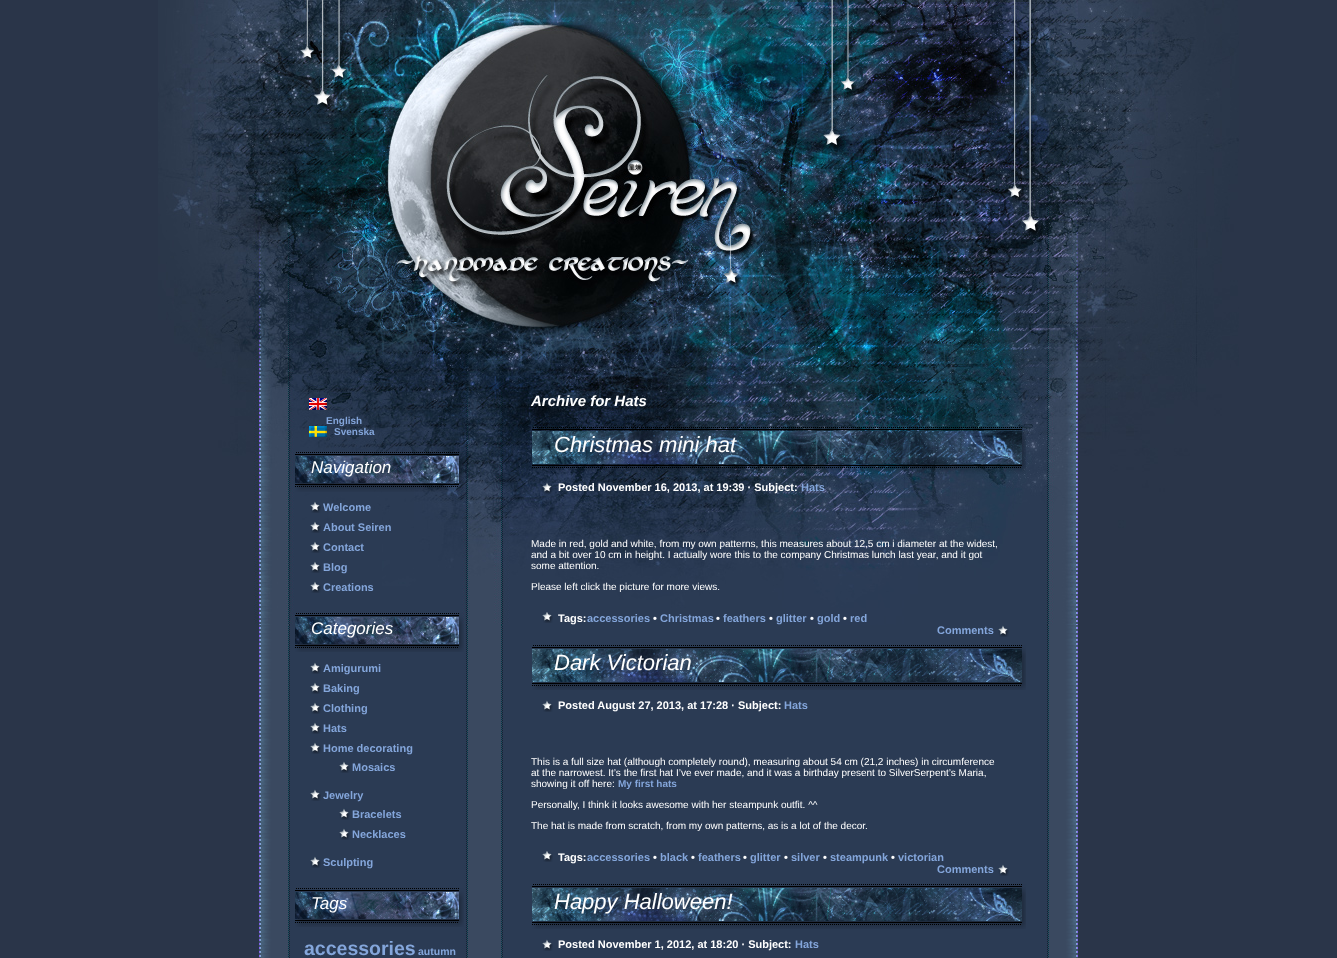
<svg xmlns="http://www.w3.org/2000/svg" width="1337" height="958">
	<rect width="100%" height="100%" fill="#2A3549" />
	<image x="259" y="625" width="819" height="333" href="assets/img1.png" />
	<image x="158" y="0" width="1081" height="625" href="assets/img2.png" />
	<image x="309" y="398" width="18" height="12" href="assets/img3.png" />
	<text x="326" y="424" font-family="Liberation Sans" font-size="10" font-weight="700" fill="#84A6DB">English</text>
	<image x="309" y="426" width="18" height="11" href="assets/img4.png" />
	<text x="334" y="435" font-family="Liberation Sans" font-size="10" font-weight="700" fill="#84A6DB">Svenska</text>
	<image x="295" y="452" width="169" height="40" href="assets/img5.png" />
	<text x="311" y="473" font-family="Liberation Sans" font-size="17" font-style="italic" fill="#FFFFFF">Navigation</text>
	<image x="310" y="501" width="11" height="12" href="assets/img6.png" />
	<text x="323" y="511" font-family="Liberation Sans" font-size="11" font-weight="700" fill="#84A6DB">Welcome</text>
	<image x="310" y="521" width="11" height="12" href="assets/img6.png" />
	<text x="323" y="531" font-family="Liberation Sans" font-size="11" font-weight="700" fill="#84A6DB">About Seiren</text>
	<image x="310" y="541" width="11" height="12" href="assets/img6.png" />
	<text x="323" y="551" font-family="Liberation Sans" font-size="11" font-weight="700" fill="#84A6DB">Contact</text>
	<image x="310" y="561" width="11" height="12" href="assets/img6.png" />
	<text x="323" y="571" font-family="Liberation Sans" font-size="11" font-weight="700" fill="#84A6DB">Blog</text>
	<image x="310" y="581" width="11" height="12" href="assets/img6.png" />
	<text x="323" y="591" font-family="Liberation Sans" font-size="11" font-weight="700" fill="#84A6DB">Creations</text>
	<image x="295" y="613" width="169" height="39" href="assets/img7.png" />
	<text x="311" y="634" font-family="Liberation Sans" font-size="17" font-style="italic" fill="#FFFFFF">Categories</text>
	<image x="310" y="662" width="11" height="12" href="assets/img6.png" />
	<text x="323" y="672" font-family="Liberation Sans" font-size="11" font-weight="700" fill="#84A6DB">Amigurumi</text>
	<image x="310" y="682" width="11" height="12" href="assets/img6.png" />
	<text x="323" y="692" font-family="Liberation Sans" font-size="11" font-weight="700" fill="#84A6DB">Baking</text>
	<image x="310" y="702" width="11" height="12" href="assets/img6.png" />
	<text x="323" y="712" font-family="Liberation Sans" font-size="11" font-weight="700" fill="#84A6DB">Clothing</text>
	<image x="310" y="722" width="11" height="12" href="assets/img6.png" />
	<text x="323" y="732" font-family="Liberation Sans" font-size="11" font-weight="700" fill="#84A6DB">Hats</text>
	<image x="310" y="742" width="11" height="12" href="assets/img6.png" />
	<text x="323" y="752" font-family="Liberation Sans" font-size="11" font-weight="700" fill="#84A6DB">Home decorating</text>
	<image x="339" y="761" width="11" height="12" href="assets/img6.png" />
	<text x="352" y="771" font-family="Liberation Sans" font-size="11" font-weight="700" fill="#84A6DB">Mosaics</text>
	<image x="310" y="789" width="11" height="12" href="assets/img6.png" />
	<text x="323" y="799" font-family="Liberation Sans" font-size="11" font-weight="700" fill="#84A6DB">Jewelry</text>
	<image x="339" y="808" width="11" height="12" href="assets/img6.png" />
	<text x="352" y="818" font-family="Liberation Sans" font-size="11" font-weight="700" fill="#84A6DB">Bracelets</text>
	<image x="339" y="828" width="11" height="12" href="assets/img6.png" />
	<text x="352" y="838" font-family="Liberation Sans" font-size="11" font-weight="700" fill="#84A6DB">Necklaces</text>
	<image x="310" y="856" width="11" height="12" href="assets/img6.png" />
	<text x="323" y="866" font-family="Liberation Sans" font-size="11" font-weight="700" fill="#84A6DB">Sculpting</text>
	<image x="295" y="888" width="169" height="39" href="assets/img8.png" />
	<text x="311" y="909" font-family="Liberation Sans" font-size="17" font-style="italic" fill="#FFFFFF">Tags</text>
	<text x="304" y="955" font-family="Liberation Sans" font-size="19.5" font-weight="700" fill="#84A6DB">accessories</text>
	<text x="418" y="955" font-family="Liberation Sans" font-size="10.5" font-weight="700" fill="#84A6DB">autumn</text>
	<text x="531" y="406" font-family="Liberation Sans" font-size="15" font-weight="700" font-style="italic" fill="#FFFFFF">Archive for Hats</text>
	<image x="532" y="427" width="494" height="47" href="assets/img9.png" />
	<text x="554" y="452" font-family="Liberation Sans" font-size="22" font-style="italic" fill="#FFFFFF">Christmas mini hat</text>
	<image x="542" y="482" width="11" height="12" href="assets/img10.png" />
	<text x="558" y="491" font-family="Liberation Sans" font-size="11" font-weight="700" fill="#FFFFFF">Posted November 16, 2013, at 19:39 · Subject:</text>
	<text x="801" y="491" font-family="Liberation Sans" font-size="11" font-weight="700" fill="#84A6DB">Hats</text>
	<g font-family="Liberation Sans" font-size="10" fill="#FFFFFF">
		<text x="531" y="547">Made in red, gold and white, from my own patterns, this measures about 12,5 cm i diameter at the widest,</text>
		<text x="531" y="558">and a bit over 10 cm in height. I actually wore this to the company Christmas lunch last year, and it got</text>
		<text x="531" y="569">some attention.</text>
		<text x="531" y="590">Please left click the picture for more views.</text>
	</g>
	<image x="542" y="612" width="11" height="11" href="assets/img11.png" />
	<text x="558" y="622" font-family="Liberation Sans" font-size="11" font-weight="700" fill="#FFFFFF">Tags:</text>
	<text x="587" y="622" font-family="Liberation Sans" font-size="11" font-weight="700" fill="#84A6DB">accessories</text>
	<text x="653" y="622" font-family="Liberation Sans" font-size="11" font-weight="700" fill="#FFFFFF">•</text>
	<text x="660" y="622" font-family="Liberation Sans" font-size="11" font-weight="700" fill="#84A6DB">Christmas</text>
	<text x="716" y="622" font-family="Liberation Sans" font-size="11" font-weight="700" fill="#FFFFFF">•</text>
	<text x="723" y="622" font-family="Liberation Sans" font-size="11" font-weight="700" fill="#84A6DB">feathers</text>
	<text x="769" y="622" font-family="Liberation Sans" font-size="11" font-weight="700" fill="#FFFFFF">•</text>
	<text x="776" y="622" font-family="Liberation Sans" font-size="11" font-weight="700" fill="#84A6DB">glitter</text>
	<text x="810" y="622" font-family="Liberation Sans" font-size="11" font-weight="700" fill="#FFFFFF">•</text>
	<text x="817" y="622" font-family="Liberation Sans" font-size="11" font-weight="700" fill="#84A6DB">gold</text>
	<text x="843" y="622" font-family="Liberation Sans" font-size="11" font-weight="700" fill="#FFFFFF">•</text>
	<text x="850" y="622" font-family="Liberation Sans" font-size="11" font-weight="700" fill="#84A6DB">red</text>
	<image x="998" y="625" width="11" height="12" href="assets/img6.png" />
	<text x="937" y="634" font-family="Liberation Sans" font-size="11" font-weight="700" fill="#84A6DB">Comments</text>
	<image x="532" y="645" width="494" height="45" href="assets/img12.png" />
	<text x="554" y="670" font-family="Liberation Sans" font-size="22" font-style="italic" fill="#FFFFFF">Dark Victorian</text>
	<image x="542" y="700" width="11" height="12" href="assets/img6.png" />
	<text x="558" y="709" font-family="Liberation Sans" font-size="11" font-weight="700" fill="#FFFFFF">Posted August 27, 2013, at 17:28 · Subject:</text>
	<text x="784" y="709" font-family="Liberation Sans" font-size="11" font-weight="700" fill="#84A6DB">Hats</text>
	<g font-family="Liberation Sans" font-size="10" fill="#FFFFFF">
		<text x="531" y="765">This is a full size hat (although completely round), measuring about 54 cm (21,2 inches) in circumference</text>
		<text x="531" y="776">at the narrowest. It’s the first hat I’ve ever made, and it was a birthday present to SilverSerpent’s Maria,</text>
		<text x="531" y="787">showing it off here:</text>
	</g>
	<text x="618" y="787" font-family="Liberation Sans" font-size="10" font-weight="700" fill="#84A6DB">My first hats</text>
	<g font-family="Liberation Sans" font-size="10" fill="#FFFFFF">
		<text x="531" y="808">Personally, I think it looks awesome with her steampunk outfit. ^^</text>
		<text x="531" y="829">The hat is made from scratch, from my own patterns, as is a lot of the decor.</text>
	</g>
	<image x="542" y="851" width="11" height="11" href="assets/img11.png" />
	<text x="558" y="861" font-family="Liberation Sans" font-size="11" font-weight="700" fill="#FFFFFF">Tags:</text>
	<text x="587" y="861" font-family="Liberation Sans" font-size="11" font-weight="700" fill="#84A6DB">accessories</text>
	<text x="653" y="861" font-family="Liberation Sans" font-size="11" font-weight="700" fill="#FFFFFF">•</text>
	<text x="660" y="861" font-family="Liberation Sans" font-size="11" font-weight="700" fill="#84A6DB">black</text>
	<text x="691" y="861" font-family="Liberation Sans" font-size="11" font-weight="700" fill="#FFFFFF">•</text>
	<text x="698" y="861" font-family="Liberation Sans" font-size="11" font-weight="700" fill="#84A6DB">feathers</text>
	<text x="743" y="861" font-family="Liberation Sans" font-size="11" font-weight="700" fill="#FFFFFF">•</text>
	<text x="750" y="861" font-family="Liberation Sans" font-size="11" font-weight="700" fill="#84A6DB">glitter</text>
	<text x="784" y="861" font-family="Liberation Sans" font-size="11" font-weight="700" fill="#FFFFFF">•</text>
	<text x="791" y="861" font-family="Liberation Sans" font-size="11" font-weight="700" fill="#84A6DB">silver</text>
	<text x="823" y="861" font-family="Liberation Sans" font-size="11" font-weight="700" fill="#FFFFFF">•</text>
	<text x="830" y="861" font-family="Liberation Sans" font-size="11" font-weight="700" fill="#84A6DB">steampunk</text>
	<text x="891" y="861" font-family="Liberation Sans" font-size="11" font-weight="700" fill="#FFFFFF">•</text>
	<text x="898" y="861" font-family="Liberation Sans" font-size="11" font-weight="700" fill="#84A6DB">victorian</text>
	<image x="998" y="864" width="11" height="12" href="assets/img6.png" />
	<text x="937" y="873" font-family="Liberation Sans" font-size="11" font-weight="700" fill="#84A6DB">Comments</text>
	<image x="532" y="884" width="494" height="45" href="assets/img12.png" />
	<text x="554" y="909" font-family="Liberation Sans" font-size="22" font-style="italic" fill="#FFFFFF">Happy Halloween!</text>
	<image x="542" y="939" width="11" height="12" href="assets/img6.png" />
	<text x="558" y="948" font-family="Liberation Sans" font-size="11" font-weight="700" fill="#FFFFFF">Posted November 1, 2012, at 18:20 · Subject:</text>
	<text x="795" y="948" font-family="Liberation Sans" font-size="11" font-weight="700" fill="#84A6DB">Hats</text>
</svg>
